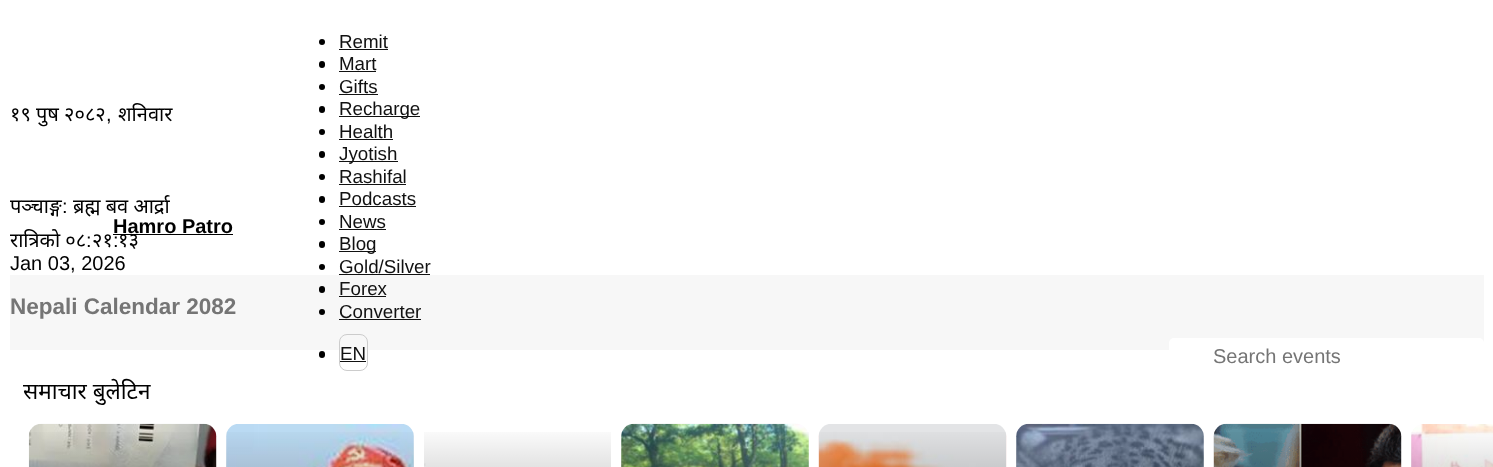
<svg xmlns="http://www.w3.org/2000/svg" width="1493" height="467">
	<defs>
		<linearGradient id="g1" gradientUnits="userSpaceOnUse" x1="123" y1="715" x2="123" y2="424"><stop offset="0.1" stop-color="#000000" stop-opacity="0.67" /><stop offset="1" stop-color="#000000" stop-opacity="0" /></linearGradient>
		<linearGradient id="g2" gradientUnits="userSpaceOnUse" x1="320" y1="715" x2="320" y2="424"><stop offset="0.1" stop-color="#000000" stop-opacity="0.67" /><stop offset="1" stop-color="#000000" stop-opacity="0" /></linearGradient>
		<linearGradient id="g3" gradientUnits="userSpaceOnUse" x1="518" y1="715" x2="518" y2="424"><stop offset="0.1" stop-color="#000000" stop-opacity="0.67" /><stop offset="1" stop-color="#000000" stop-opacity="0" /></linearGradient>
		<linearGradient id="g4" gradientUnits="userSpaceOnUse" x1="715" y1="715" x2="715" y2="424"><stop offset="0.1" stop-color="#000000" stop-opacity="0.67" /><stop offset="1" stop-color="#000000" stop-opacity="0" /></linearGradient>
		<linearGradient id="g5" gradientUnits="userSpaceOnUse" x1="913" y1="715" x2="913" y2="424"><stop offset="0.1" stop-color="#000000" stop-opacity="0.67" /><stop offset="1" stop-color="#000000" stop-opacity="0" /></linearGradient>
		<linearGradient id="g6" gradientUnits="userSpaceOnUse" x1="1110" y1="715" x2="1110" y2="424"><stop offset="0.1" stop-color="#000000" stop-opacity="0.67" /><stop offset="1" stop-color="#000000" stop-opacity="0" /></linearGradient>
		<linearGradient id="g7" gradientUnits="userSpaceOnUse" x1="1308" y1="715" x2="1308" y2="424"><stop offset="0.1" stop-color="#000000" stop-opacity="0.67" /><stop offset="1" stop-color="#000000" stop-opacity="0" /></linearGradient>
		<linearGradient id="g8" gradientUnits="userSpaceOnUse" x1="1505" y1="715" x2="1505" y2="424"><stop offset="0.1" stop-color="#000000" stop-opacity="0.67" /><stop offset="1" stop-color="#000000" stop-opacity="0" /></linearGradient>
	</defs>
	<rect width="100%" height="100%" fill="#FFFFFF" />
	<text x="10" y="121" font-family="Noto Sans" font-size="20" fill="#000000">१९ पुष २०८२</text>
	<text x="106" y="121" font-family="Liberation Sans" font-size="20" fill="#000000">,</text>
	<g font-family="Noto Sans" font-size="20" fill="#000000">
		<text x="118" y="121">शनिवार</text>
		<text x="10" y="213">पञ्चाङ्ग</text>
	</g>
	<text x="62" y="213" font-family="Liberation Sans" font-size="20" fill="#000000">:</text>
	<g font-family="Noto Sans" font-size="20" fill="#000000">
		<text x="73" y="213">ब्रह्म बव आर्द्रा</text>
		<text x="10" y="247">रात्रिको ०८</text>
	</g>
	<text x="86" y="247" font-family="Liberation Sans" font-size="20" fill="#000000">:</text>
	<text x="92" y="247" font-family="Noto Sans" font-size="20" fill="#000000">२१</text>
	<text x="113" y="247" font-family="Liberation Sans" font-size="20" fill="#000000">:</text>
	<rect x="113" y="234" width="120" height="1" fill="#000000" />
	<text x="118" y="247" font-family="Noto Sans" font-size="20" fill="#000000">१३</text>
	<text x="10" y="270" font-family="Liberation Sans" font-size="20" fill="#000000">Jan 03, 2026</text>
	<text x="113" y="233" font-family="Liberation Sans" font-size="20" font-weight="700" fill="#000000">Hamro Patro</text>
	<circle cx="322" cy="42" r="3" fill="#000000" />
	<text x="339" y="48" font-family="Liberation Sans" font-size="18.75" fill="#111111">Remit</text>
	<rect x="339" y="49" width="49" height="1" fill="#111111" />
	<rect x="319" y="61" width="6" height="7" rx="3" fill="#000000" />
	<text x="339" y="70" font-family="Liberation Sans" font-size="18.75" fill="#111111">Mart</text>
	<rect x="339" y="71" width="37" height="1" fill="#111111" />
	<circle cx="322" cy="87" r="3" fill="#000000" />
	<text x="339" y="93" font-family="Liberation Sans" font-size="18.75" fill="#111111">Gifts</text>
	<rect x="339" y="94" width="39" height="1" fill="#111111" />
	<rect x="319" y="106" width="6" height="7" rx="3" fill="#000000" />
	<rect x="339" y="116" width="81" height="1" fill="#111111" />
	<text x="339" y="115" font-family="Liberation Sans" font-size="18.75" fill="#111111">Recharge</text>
	<circle cx="322" cy="132" r="3" fill="#000000" />
	<text x="339" y="138" font-family="Liberation Sans" font-size="18.75" fill="#111111">Health</text>
	<rect x="339" y="139" width="54" height="1" fill="#111111" />
	<rect x="319" y="151" width="6" height="7" rx="3" fill="#000000" />
	<rect x="339" y="161" width="59" height="1" fill="#111111" />
	<text x="339" y="160" font-family="Liberation Sans" font-size="18.75" fill="#111111">Jyotish</text>
	<circle cx="322" cy="177" r="3" fill="#000000" />
	<text x="339" y="183" font-family="Liberation Sans" font-size="18.75" fill="#111111">Rashifal</text>
	<rect x="339" y="184" width="67" height="1" fill="#111111" />
	<rect x="319" y="196" width="6" height="7" rx="3" fill="#000000" />
	<text x="339" y="205" font-family="Liberation Sans" font-size="18.75" fill="#111111">Podcasts</text>
	<rect x="339" y="206" width="77" height="1" fill="#111111" />
	<circle cx="322" cy="222" r="3" fill="#000000" />
	<text x="339" y="228" font-family="Liberation Sans" font-size="18.75" fill="#111111">News</text>
	<rect x="339" y="229" width="47" height="1" fill="#111111" />
	<rect x="319" y="241" width="6" height="7" rx="3" fill="#000000" />
	<rect x="339" y="251" width="37" height="1" fill="#111111" />
	<text x="339" y="250" font-family="Liberation Sans" font-size="18.75" fill="#111111">Blog</text>
	<circle cx="322" cy="267" r="3" fill="#000000" />
	<text x="339" y="273" font-family="Liberation Sans" font-size="18.75" fill="#111111">Gold/Silver</text>
	<rect x="339" y="274" width="91" height="1" fill="#111111" />
	<rect x="10" y="275" width="1474" height="75" fill="#F7F7F7" />
	<rect x="319" y="286" width="6" height="7" rx="3" fill="#000000" />
	<text x="339" y="295" font-family="Liberation Sans" font-size="18.75" fill="#111111">Forex</text>
	<rect x="339" y="296" width="47" height="1" fill="#111111" />
	<circle cx="322" cy="312" r="3" fill="#000000" />
	<text x="339" y="318" font-family="Liberation Sans" font-size="18.75" fill="#111111">Converter</text>
	<rect x="339" y="319" width="82" height="1" fill="#111111" />
	<rect x="339.5" y="334.5" width="28" height="36" rx="7.5" fill="none" stroke="#CCCCCC" />
	<rect x="319" y="351" width="6" height="7" rx="3" fill="#000000" />
	<text x="340" y="360" font-family="Liberation Sans" font-size="18.75" fill="#111111">EN</text>
	<rect x="340" y="361" width="26" height="1" fill="#111111" />
	<text x="10" y="314" font-family="Liberation Sans" font-size="22.5" font-weight="700" fill="#757575">Nepali Calendar 2082</text>
	<rect x="1169" y="338" width="315" height="37" rx="5" fill="#FFFFFF" />
	<text x="1213" y="363" font-family="Liberation Sans" font-size="20" fill="#757575">Search events</text>
	<text x="23" y="399" font-family="Noto Sans" font-size="22.5" fill="#000000">समाचार बुलेटिन</text>
	<image x="28" y="423" width="189" height="44" href="assets/img1.png" />
	<rect x="29" y="432" width="187" height="35" fill="url(#g1)" />
	<image x="226" y="424" width="188" height="43" href="assets/img2.png" />
	<rect x="226" y="432" width="188" height="35" fill="url(#g2)" />
	<image x="424" y="463" width="2" height="3" href="assets/img3.png" />
	<rect x="424" y="432" width="187" height="35" fill="url(#g3)" />
	<image x="621" y="423" width="188" height="44" href="assets/img4.png" />
	<rect x="621" y="432" width="188" height="35" fill="url(#g4)" />
	<image x="818" y="424" width="189" height="43" href="assets/img5.png" />
	<rect x="819" y="432" width="187" height="35" fill="url(#g5)" />
	<image x="1016" y="423" width="188" height="44" href="assets/img6.png" />
	<rect x="1016" y="432" width="188" height="35" fill="url(#g6)" />
	<image x="1213" y="423" width="189" height="44" href="assets/img7.png" />
	<rect x="1214" y="432" width="187" height="35" fill="url(#g7)" />
	<image x="1411" y="424" width="82" height="43" href="assets/img8.png" />
	<rect x="1411" y="432" width="82" height="35" fill="url(#g8)" />
</svg>
